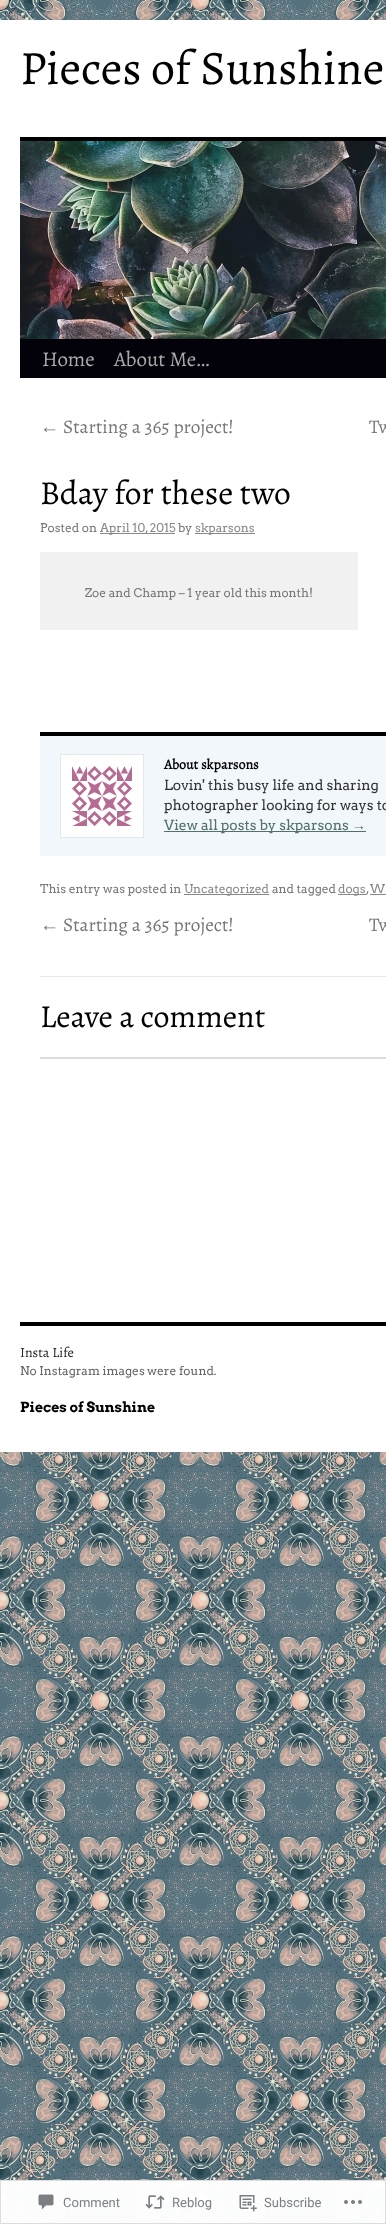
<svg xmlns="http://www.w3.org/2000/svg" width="386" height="2224">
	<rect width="100%" height="100%" fill="#FFFFFF" />
	<image x="0" y="0" width="386" height="2224" href="assets/img1.png" />
	<rect x="0" y="20" width="386" height="1432" fill="#FFFFFF" />
	<text x="20" y="84" font-family="Alegreya" font-size="48" fill="#000000">Pieces of Sunshine</text>
	<rect x="20" y="137" width="366" height="4" fill="#000000" />
	<rect x="20" y="339" width="366" height="1" fill="#000000" />
	<image x="20" y="141" width="366" height="198" href="assets/img2.png" />
	<rect x="20" y="340" width="366" height="38" fill="#03020A" />
	<g font-family="Alegreya" font-size="21" fill="#AAAAAA">
		<text x="42" y="366">Home</text>
		<text x="114" y="366">About Me…</text>
	</g>
	<text x="40" y="433" font-family="Liberation Serif" font-size="19.25" fill="#777777">←</text>
	<g font-family="Alegreya" font-size="19.25" fill="#777777">
		<text x="63" y="433">Starting a 365 project!</text>
		<text x="369" y="433">Tw</text>
	</g>
	<text x="40" y="504" font-family="Alegreya" font-size="33.5" fill="#000000">Bday for these two</text>
	<text x="40" y="532" font-family="Arvo" font-size="12" fill="#777777">Posted on</text>
	<rect x="100" y="533" width="75" height="1" fill="#888888" />
	<text x="100" y="532" font-family="Arvo" font-size="12" fill="#888888">April 10, 2015</text>
	<text x="178" y="532" font-family="Arvo" font-size="12" fill="#777777">by</text>
	<rect x="195" y="533" width="60" height="1" fill="#888888" />
	<text x="195" y="532" font-family="Arvo" font-size="12" fill="#888888">skparsons</text>
	<rect x="40" y="552" width="318" height="78" fill="#F1F1F1" />
	<text x="85" y="597" font-family="Arvo" font-size="12" fill="#777777">Zoe and Champ – 1 year old this month!</text>
	<rect x="40" y="736" width="346" height="120" fill="#F2F7FC" />
	<rect x="40" y="732" width="346" height="4" fill="#000000" />
	<rect x="60.5" y="754.5" width="83" height="83" fill="#FFFFFF" stroke="#E7E7E7" />
	<image x="72" y="766" width="60" height="60" href="assets/img3.png" />
	<text x="164" y="769" font-family="Alegreya" font-size="14" font-weight="700" fill="#000000">About skparsons</text>
	<g font-family="Arvo" font-size="14" fill="#333333">
		<text x="164" y="790">Lovin' this busy life and sharing</text>
		<text x="164" y="810">photographer looking for ways to</text>
	</g>
	<rect x="164" y="831" width="202" height="1" fill="#52716B" />
	<text x="164" y="830" font-family="Arvo" font-size="14" fill="#52716B">View all posts by skparsons</text>
	<text x="352" y="830" font-family="Liberation Serif" font-size="14" fill="#52716B">→</text>
	<text x="40" y="893" font-family="Arvo" font-size="12" fill="#777777">This entry was posted in</text>
	<rect x="184" y="894" width="85" height="1" fill="#888888" />
	<text x="184" y="893" font-family="Arvo" font-size="12" fill="#888888">Uncategorized</text>
	<text x="272" y="893" font-family="Arvo" font-size="12" fill="#777777">and tagged</text>
	<rect x="338" y="894" width="28" height="1" fill="#888888" />
	<text x="338" y="893" font-family="Arvo" font-size="12" fill="#888888">dogs</text>
	<text x="366" y="893" font-family="Arvo" font-size="12" fill="#777777">,</text>
	<text x="370" y="893" font-family="Arvo" font-size="12" fill="#888888">W</text>
	<rect x="370" y="894" width="16" height="1" fill="#888888" />
	<text x="40" y="931" font-family="Liberation Serif" font-size="19.25" fill="#777777">←</text>
	<g font-family="Alegreya" font-size="19.25" fill="#777777">
		<text x="63" y="931">Starting a 365 project!</text>
		<text x="369" y="931">Tw</text>
	</g>
	<rect x="40" y="976" width="346" height="1" fill="#E7E7E7" />
	<text x="40" y="1027" font-family="Alegreya" font-size="32" fill="#000000">Leave a comment</text>
	<rect x="40" y="1057" width="346" height="2" fill="#DCDCDE" />
	<rect x="20" y="1322" width="366" height="4" fill="#000000" />
	<text x="20" y="1357" font-family="Alegreya" font-size="14" fill="#222222">Insta Life</text>
	<text x="20" y="1375" font-family="Arvo" font-size="12" fill="#666666">No Instagram images were found.</text>
	<text x="20" y="1412" font-family="Arvo" font-size="14" font-weight="700" fill="#000000">Pieces of Sunshine</text>
	<rect x="0" y="2180" width="386" height="44" fill="#FFFFFF" fill-opacity="0.98" />
	<rect x="0.5" y="2180.5" width="385" height="43" fill="none" stroke="#DCDCDE" stroke-opacity="0.98" />
	<image x="38" y="2194" width="16" height="16" href="assets/img4.png" />
	<text x="63" y="2207" font-family="Roboto" font-size="13" fill="#7B7F84">Comment</text>
	<image x="145" y="2195" width="20" height="14" href="assets/img5.png" />
	<text x="172" y="2207" font-family="Roboto" font-size="13" fill="#7B7F84">Reblog</text>
	<image x="239" y="2195" width="18" height="17" href="assets/img6.png" />
	<text x="264" y="2207" font-family="Roboto" font-size="13" fill="#7B7F84">Subscribe</text>
	<image x="344" y="2200" width="18" height="4" href="assets/img7.png" />
</svg>
